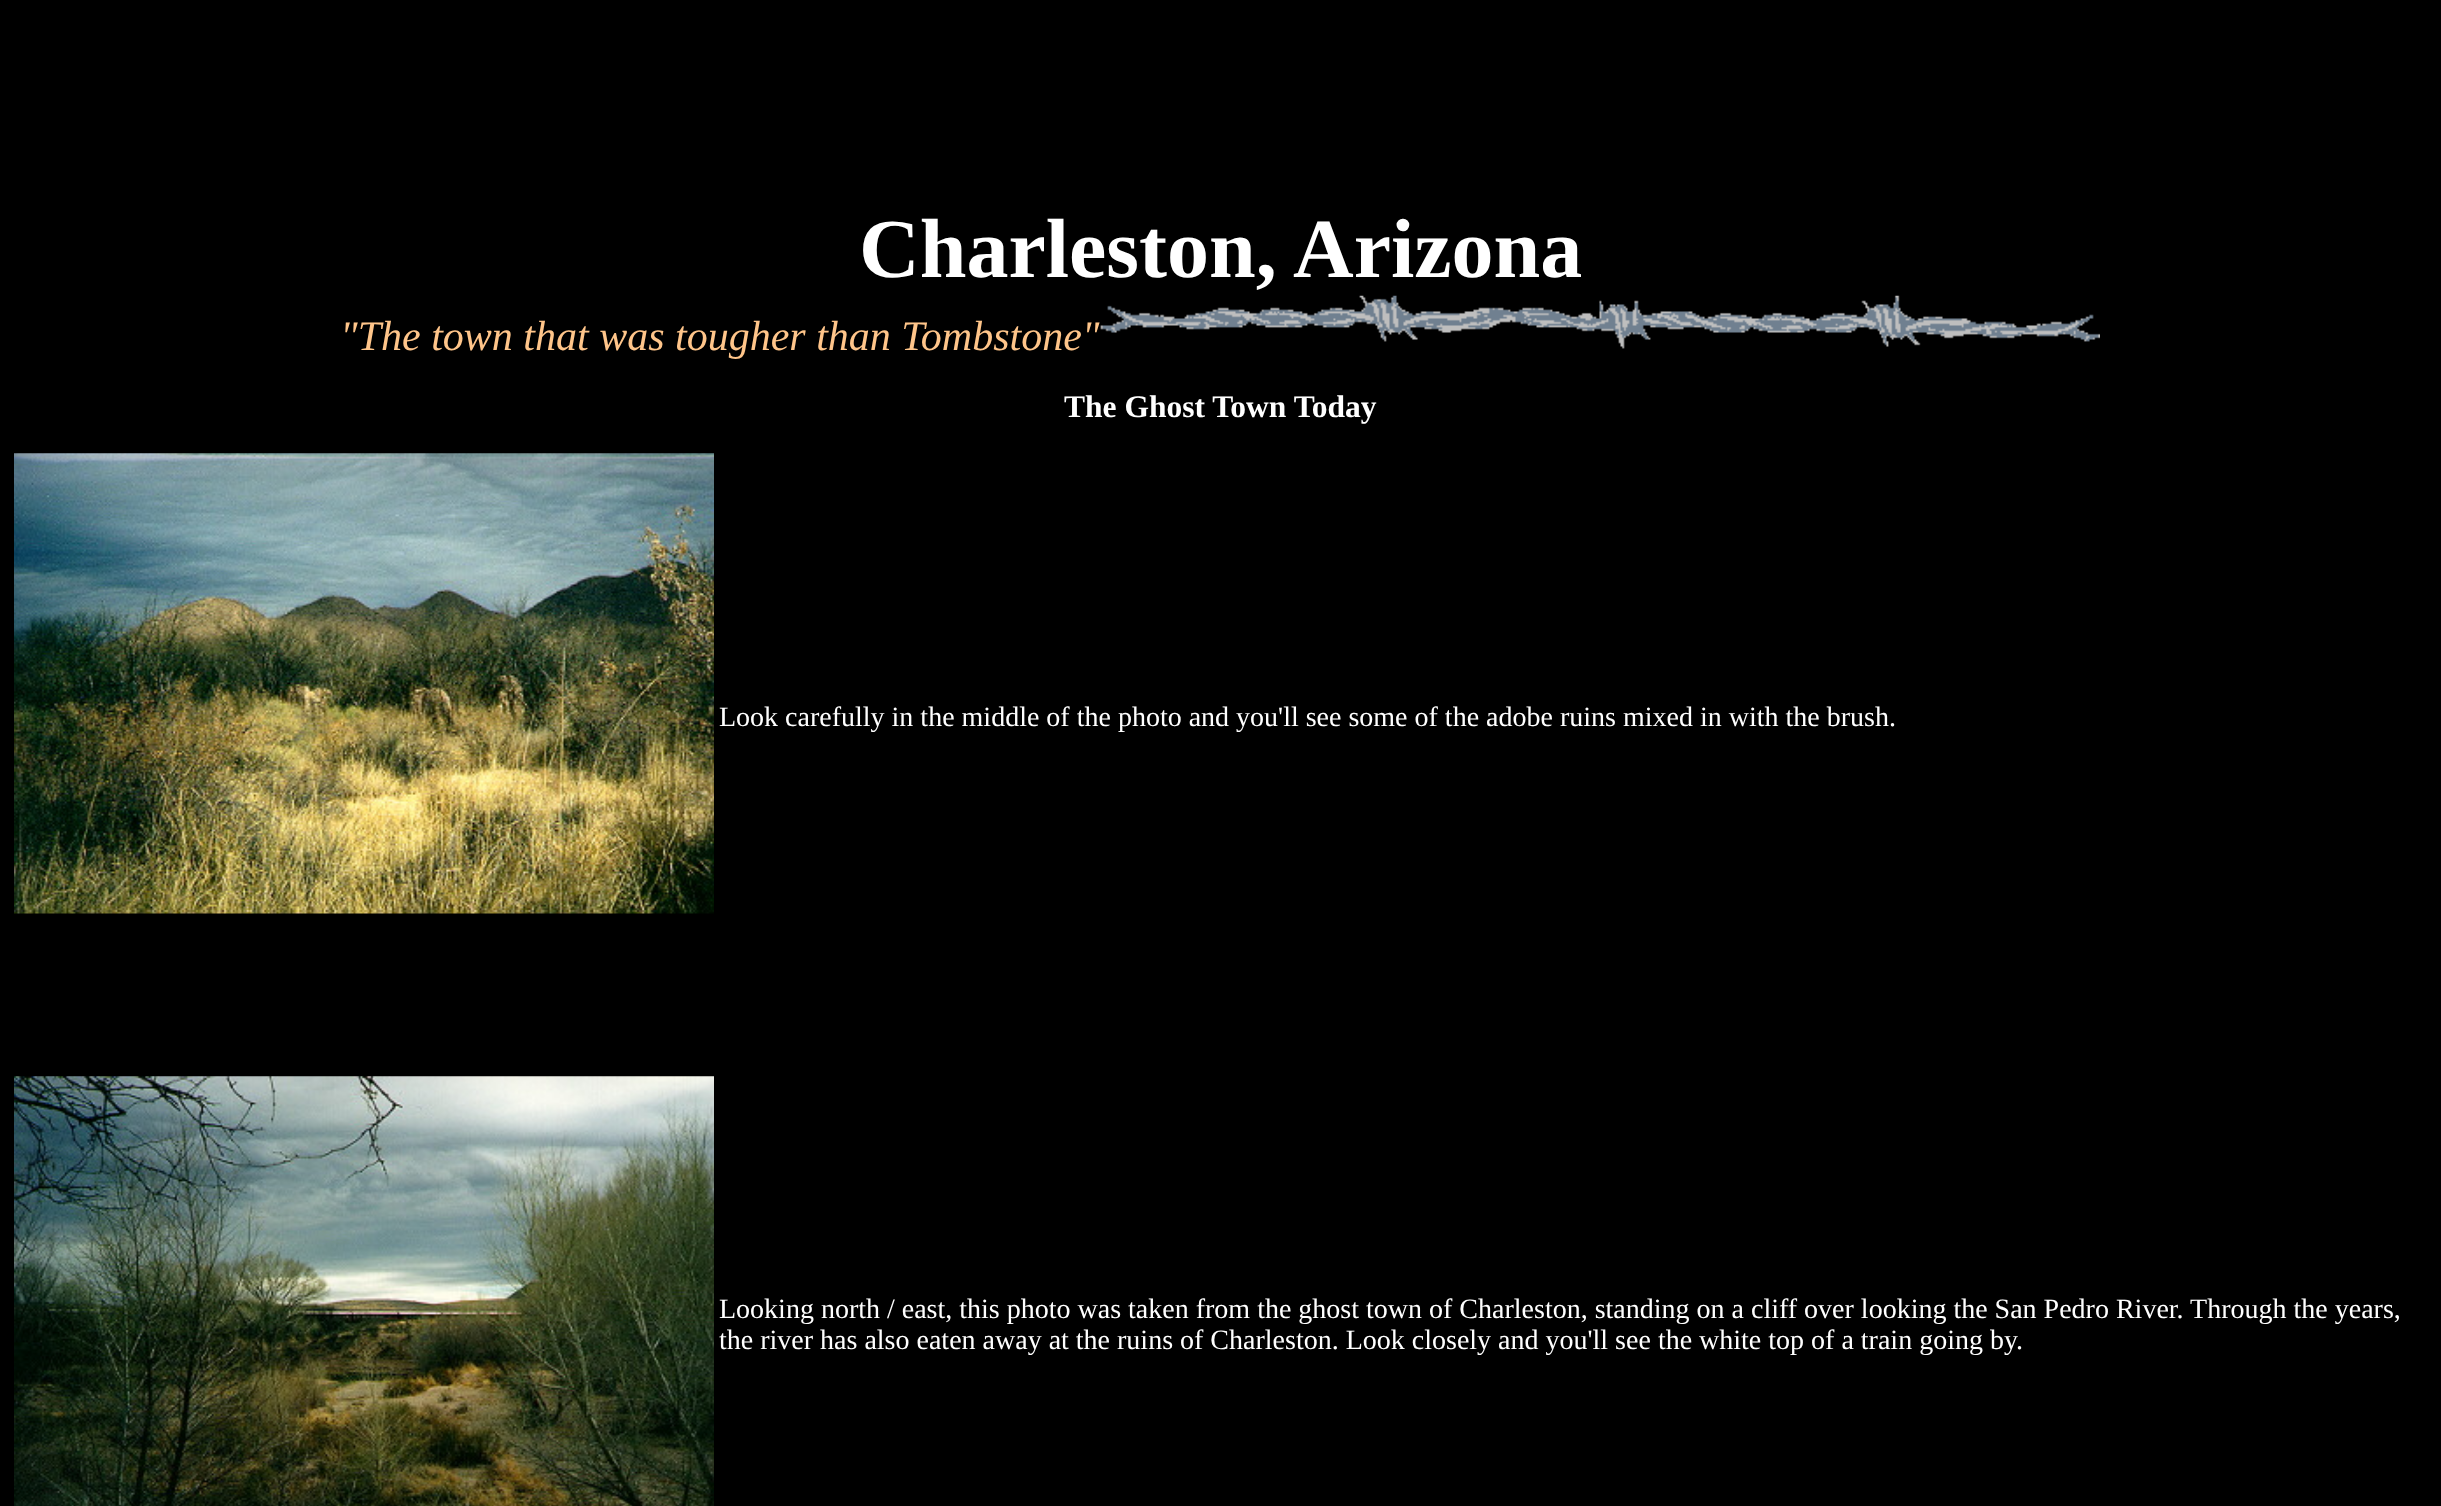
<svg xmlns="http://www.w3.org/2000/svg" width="2441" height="1506">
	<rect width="100%" height="100%" fill="#000000" />
	<text x="859" y="277" font-family="Liberation Serif" font-size="84" font-weight="700" fill="#FFFFFF">Charleston, Arizona</text>
	<text x="340" y="350" font-family="Liberation Serif" font-size="42" font-style="italic" fill="#FFC58A">"The town that was tougher than Tombstone"</text>
	<image x="1100" y="295" width="1000" height="54" href="assets/img1.png" />
	<text x="1064" y="417" font-family="Liberation Serif" font-size="31.5" font-weight="700" fill="#FFFFFF">The Ghost Town Today</text>
	<image x="14" y="453" width="700" height="461" href="assets/img2.png" />
	<text x="719" y="726" font-family="Liberation Serif" font-size="28" fill="#FFFFFF">Look carefully in the middle of the photo and you'll see some of the adobe ruins mixed in with the brush.</text>
	<image x="14" y="1076" width="700" height="430" href="assets/img3.png" />
	<g font-family="Liberation Serif" font-size="28" fill="#FFFFFF">
		<text x="719" y="1318">Looking north / east, this photo was taken from the ghost town of Charleston, standing on a cliff over looking the San Pedro River. Through the years,</text>
		<text x="719" y="1349">the river has also eaten away at the ruins of Charleston. Look closely and you'll see the white top of a train going by.</text>
	</g>
</svg>
